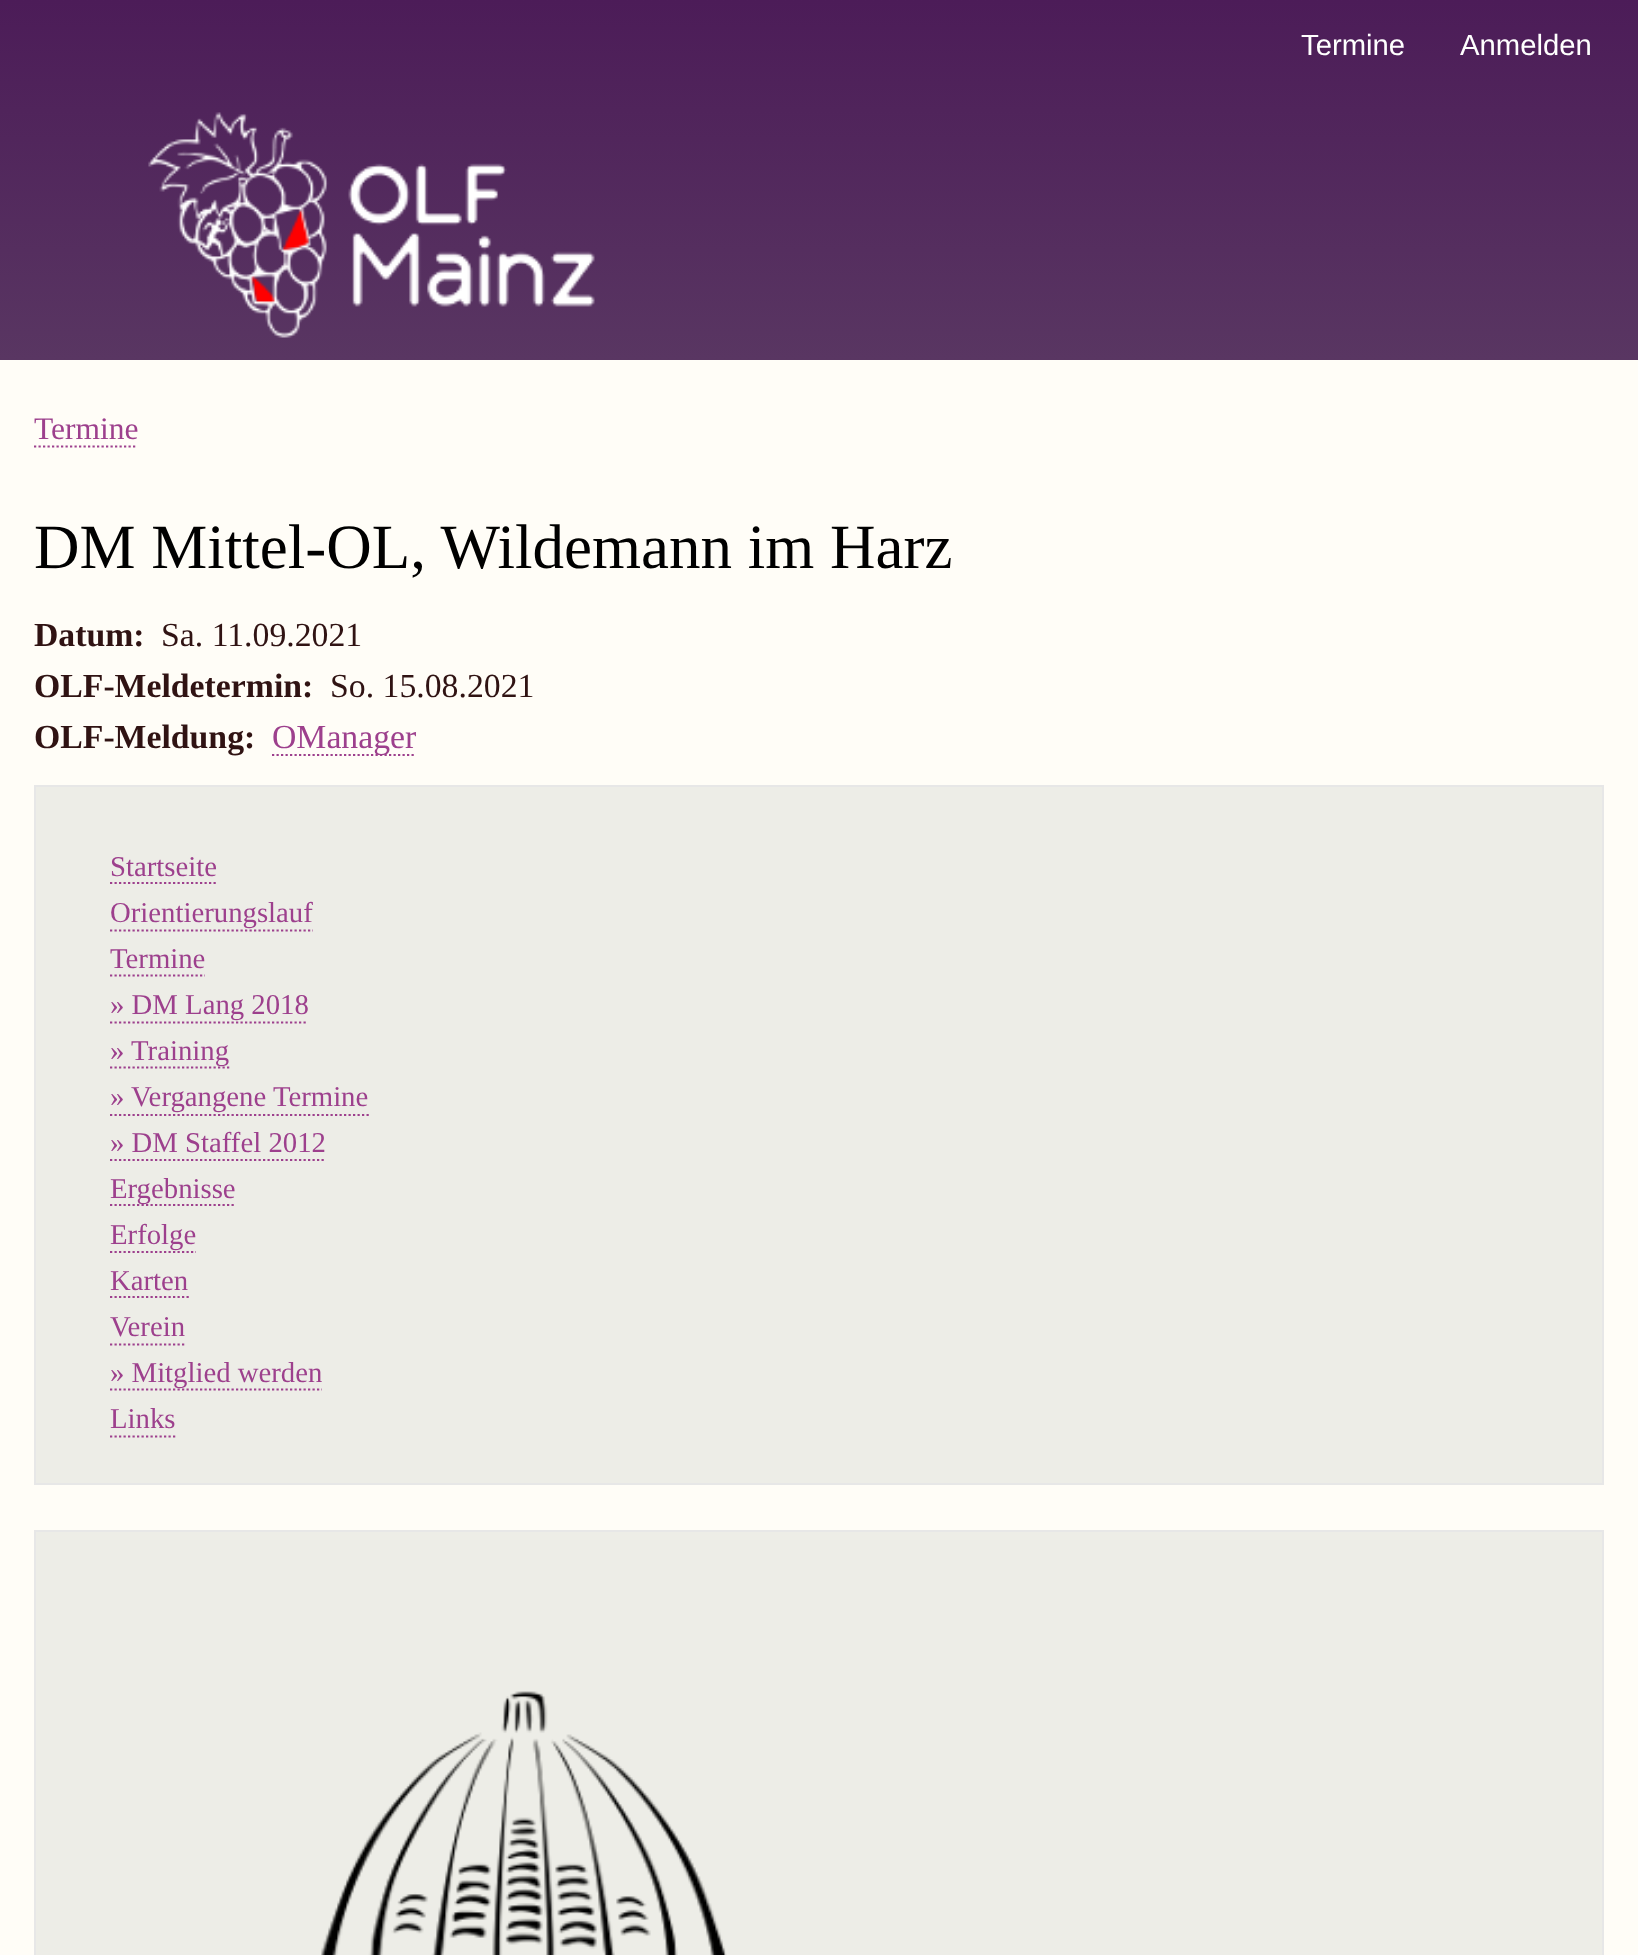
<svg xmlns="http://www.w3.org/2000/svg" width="1638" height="1955">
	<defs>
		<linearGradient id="g1" gradientUnits="userSpaceOnUse" x1="819" y1="0" x2="819" y2="360"><stop offset="0" stop-color="#4C1C58" /><stop offset="1" stop-color="#593662" /></linearGradient>
	</defs>
	<rect width="100%" height="100%" fill="#FFFDF7" />
	<rect x="0" y="0" width="1638" height="360" fill="url(#g1)" />
	<g font-family="Liberation Sans" font-size="29.25" fill="#FFFFFF">
		<text x="1301" y="55">Termine</text>
		<text x="1460" y="55">Anmelden</text>
	</g>
	<image x="148" y="112" width="447" height="226" href="assets/img1.png" />
	<text x="34" y="439" font-family="Liberation Serif" font-size="31.5" fill="#9D408D">Termine</text>
	<path d="M34 446.5H137" fill="none" stroke="#9D408D" stroke-width="2.2" stroke-dasharray="2.25 2.25" />
	<text x="34" y="568" font-family="Liberation Serif" font-size="63" fill="#000000">DM Mittel-OL, Wildemann im Harz</text>
	<text x="34" y="646" font-family="Liberation Serif" font-size="33.75" font-weight="700" fill="#301313">Datum:</text>
	<text x="161" y="646" font-family="Liberation Serif" font-size="33.75" fill="#301313">Sa. 11.09.2021</text>
	<text x="34" y="697" font-family="Liberation Serif" font-size="33.75" font-weight="700" fill="#301313">OLF-Meldetermin:</text>
	<text x="330" y="697" font-family="Liberation Serif" font-size="33.75" fill="#301313">So. 15.08.2021</text>
	<text x="34" y="748" font-family="Liberation Serif" font-size="33.75" font-weight="700" fill="#301313">OLF-Meldung:</text>
	<path d="M272 755H416" fill="none" stroke="#9D408D" stroke-width="2.2" stroke-dasharray="2.25 2.25" />
	<text x="272" y="748" font-family="Liberation Serif" font-size="33.75" fill="#9D408D">OManager</text>
	<rect x="35" y="786" width="1568" height="698" fill="#EDEDE7" stroke="#E7E7E7" stroke-width="2" />
	<text x="110" y="876" font-family="Liberation Serif" font-size="28.75" fill="#9D408D">Startseite</text>
	<path d="M110 883H216" fill="none" stroke="#9D408D" stroke-width="2.2" stroke-dasharray="2.25 2.25" />
	<text x="110" y="922" font-family="Liberation Serif" font-size="28.75" fill="#9D408D">Orientierungslauf</text>
	<path d="M110 930.5H313" fill="none" stroke="#9D408D" stroke-width="2.2" stroke-dasharray="2.25 2.25" />
	<text x="110" y="968" font-family="Liberation Serif" font-size="28.75" fill="#9D408D">Termine</text>
	<path d="M110 975.5H205" fill="none" stroke="#9D408D" stroke-width="2.2" stroke-dasharray="2.25 2.25" />
	<text x="110" y="1014" font-family="Liberation Serif" font-size="28.75" fill="#9D408D">» DM Lang 2018</text>
	<path d="M110 1022.5H308" fill="none" stroke="#9D408D" stroke-width="2.2" stroke-dasharray="2.25 2.25" />
	<path d="M110 1067.5H229.5" fill="none" stroke="#9D408D" stroke-width="2.2" stroke-dasharray="2.25 2.25" />
	<g font-family="Liberation Serif" font-size="28.75" fill="#9D408D">
		<text x="110" y="1060">» Training</text>
		<text x="110" y="1106">» Vergangene Termine</text>
	</g>
	<path d="M110 1115H369" fill="none" stroke="#9D408D" stroke-width="2.2" stroke-dasharray="2.25 2.25" />
	<text x="110" y="1152" font-family="Liberation Serif" font-size="28.75" fill="#9D408D">» DM Staffel 2012</text>
	<path d="M110 1160H326" fill="none" stroke="#9D408D" stroke-width="2.2" stroke-dasharray="2.25 2.25" />
	<path d="M110 1205H236" fill="none" stroke="#9D408D" stroke-width="2.2" stroke-dasharray="2.25 2.25" />
	<text x="110" y="1198" font-family="Liberation Serif" font-size="28.75" fill="#9D408D">Ergebnisse</text>
	<path d="M110 1252H196" fill="none" stroke="#9D408D" stroke-width="2.2" stroke-dasharray="2.25 2.25" />
	<g font-family="Liberation Serif" font-size="28.75" fill="#9D408D">
		<text x="110" y="1244">Erfolge</text>
		<text x="110" y="1290">Karten</text>
	</g>
	<path d="M110 1297H189" fill="none" stroke="#9D408D" stroke-width="2.2" stroke-dasharray="2.25 2.25" />
	<text x="110" y="1336" font-family="Liberation Serif" font-size="28.75" fill="#9D408D">Verein</text>
	<path d="M110 1344.5H184.5" fill="none" stroke="#9D408D" stroke-width="2.2" stroke-dasharray="2.25 2.25" />
	<path d="M110 1389.5H322" fill="none" stroke="#9D408D" stroke-width="2.2" stroke-dasharray="2.25 2.25" />
	<g font-family="Liberation Serif" font-size="28.75" fill="#9D408D">
		<text x="110" y="1382">» Mitglied werden</text>
		<text x="110" y="1428">Links</text>
	</g>
	<path d="M110 1436.5H175.5" fill="none" stroke="#9D408D" stroke-width="2.2" stroke-dasharray="2.25 2.25" />
	<rect x="35" y="1531" width="1568" height="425" fill="#EDEDE7" stroke="#E7E7E7" stroke-width="2" />
	<image x="321" y="1691" width="406" height="264" href="assets/img2.png" />
</svg>
